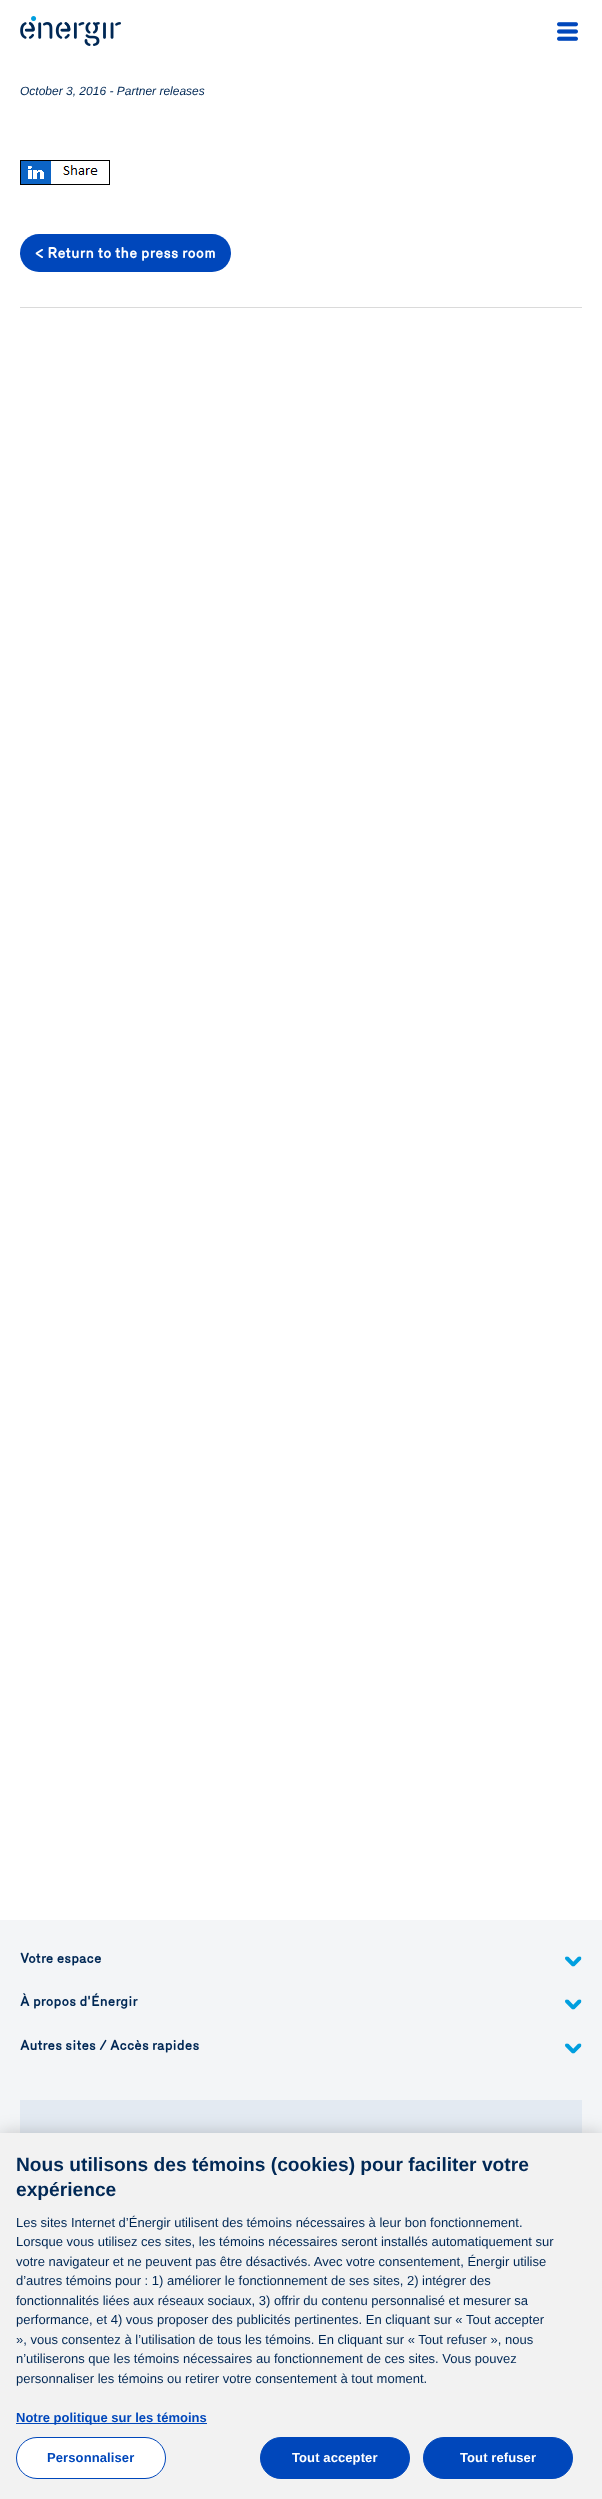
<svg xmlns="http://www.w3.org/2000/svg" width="602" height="2499">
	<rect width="100%" height="100%" fill="#FFFFFF" />
	<image x="20" y="16" width="101" height="30" href="assets/img1.png" />
	<image x="557" y="22" width="21" height="19" href="assets/img2.png" />
	<text x="20" y="95" font-family="Liberation Sans" font-size="12" font-style="italic" fill="#002855">October 3, 2016 - Partner releases</text>
	<rect x="20.5" y="160.5" width="89" height="24" fill="none" stroke="#000000" />
	<image x="21" y="161" width="77" height="23" href="assets/img3.png" />
	<rect x="20" y="234" width="211" height="38" rx="19" fill="#0047BB" />
	<text x="35" y="258" font-family="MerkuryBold" font-size="15" font-weight="700" fill="#FFFFFF">&lt; Return to the press room</text>
	<rect x="20" y="307" width="562" height="1" fill="#DADADA" />
	<rect x="0" y="1920" width="602" height="213" fill="#F3F5F7" />
	<text x="20" y="1963" font-family="MerkuryBold" font-size="14" font-weight="700" letter-spacing="-0.1" fill="#002855">Votre espace</text>
	<image x="565" y="1956" width="17" height="11" href="assets/img4.png" />
	<text x="20" y="2006" font-family="MerkuryBold" font-size="14" font-weight="700" letter-spacing="-0.1" fill="#002855">À propos d'Énergir</text>
	<image x="565" y="1999" width="17" height="11" href="assets/img4.png" />
	<text x="20" y="2050" font-family="MerkuryBold" font-size="14" font-weight="700" letter-spacing="-0.1" fill="#002855">Autres sites / Accès rapides</text>
	<image x="565" y="2043" width="17" height="11" href="assets/img4.png" />
	<rect x="20" y="2100" width="562" height="33" fill="#E3EAF2" />
	<rect x="0" y="2133" width="602" height="366" fill="#000000" fill-opacity="0.2" filter="blur(9px)" />
	<rect x="0" y="2133" width="602" height="366" fill="#F2F2F2" />
	<g font-family="Liberation Sans" font-size="19.2" font-weight="700" fill="#002855">
		<text x="16" y="2171">Nous utilisons des témoins (cookies) pour faciliter votre</text>
		<text x="16" y="2196">expérience</text>
	</g>
	<g font-family="Liberation Sans" font-size="13" fill="#002855">
		<text x="16" y="2227">Les sites Internet d’Énergir utilisent des témoins nécessaires à leur bon fonctionnement.</text>
		<text x="16" y="2246">Lorsque vous utilisez ces sites, les témoins nécessaires seront installés automatiquement sur</text>
		<text x="16" y="2266">votre navigateur et ne peuvent pas être désactivés. Avec votre consentement, Énergir utilise</text>
		<text x="16" y="2285">d’autres témoins pour : 1) améliorer le fonctionnement de ses sites, 2) intégrer des</text>
		<text x="16" y="2305">fonctionnalités liées aux réseaux sociaux, 3) offrir du contenu personnalisé et mesurer sa</text>
		<text x="16" y="2324">performance, et 4) vous proposer des publicités pertinentes. En cliquant sur « Tout accepter</text>
		<text x="16" y="2344">», vous consentez à l’utilisation de tous les témoins. En cliquant sur « Tout refuser », nous</text>
		<text x="16" y="2363">n’utiliserons que les témoins nécessaires au fonctionnement de ces sites. Vous pouvez</text>
		<text x="16" y="2383">personnaliser les témoins ou retirer votre consentement à tout moment.</text>
	</g>
	<rect x="16" y="2423" width="191" height="1" fill="#0047BB" />
	<text x="16" y="2422" font-family="Liberation Sans" font-size="13" font-weight="700" fill="#0047BB">Notre politique sur les témoins</text>
	<rect x="16.5" y="2437.5" width="149" height="41" rx="20.5" fill="#FFFFFF" stroke="#0047BB" />
	<text x="47" y="2462" font-family="Liberation Sans" font-size="13" font-weight="700" letter-spacing="0.1" fill="#0047BB">Personnaliser</text>
	<rect x="260.5" y="2437.5" width="149" height="41" rx="20.5" fill="#0047BB" stroke="#0047BB" />
	<text x="292" y="2462" font-family="Liberation Sans" font-size="13" font-weight="700" letter-spacing="0.1" fill="#FFFFFF">Tout accepter</text>
	<rect x="423.5" y="2437.5" width="149" height="41" rx="20.5" fill="#0047BB" stroke="#0047BB" />
	<text x="460" y="2462" font-family="Liberation Sans" font-size="13" font-weight="700" letter-spacing="0.1" fill="#FFFFFF">Tout refuser</text>
</svg>
